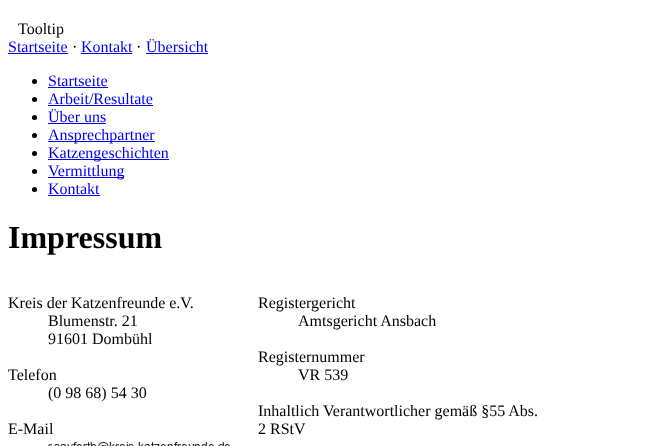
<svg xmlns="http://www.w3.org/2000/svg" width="657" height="446">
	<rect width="100%" height="100%" fill="#FFFFFF" />
	<text x="18" y="34" font-family="Liberation Serif" font-size="16" fill="#000000">Tooltip</text>
	<text x="8" y="52" font-family="Liberation Serif" font-size="16" fill="#0000EE">Startseite</text>
	<rect x="8" y="53" width="60" height="1" fill="#0000EE" />
	<text x="72" y="52" font-family="Liberation Serif" font-size="16" fill="#000000">·</text>
	<text x="81" y="52" font-family="Liberation Serif" font-size="16" fill="#0000EE">Kontakt</text>
	<rect x="81" y="53" width="51" height="1" fill="#0000EE" />
	<text x="136" y="52" font-family="Liberation Serif" font-size="16" fill="#000000">·</text>
	<text x="146" y="52" font-family="Liberation Serif" font-size="16" fill="#0000EE">Übersicht</text>
	<rect x="146" y="53" width="62" height="1" fill="#0000EE" />
	<circle cx="34.5" cy="81.5" r="2.5" fill="#000000" />
	<text x="48" y="86" font-family="Liberation Serif" font-size="16" fill="#0000EE">Startseite</text>
	<rect x="48" y="87" width="60" height="1" fill="#0000EE" />
	<circle cx="34.5" cy="99.5" r="2.5" fill="#000000" />
	<text x="48" y="104" font-family="Liberation Serif" font-size="16" fill="#0000EE">Arbeit/Resultate</text>
	<rect x="48" y="105" width="105" height="1" fill="#0000EE" />
	<circle cx="34.5" cy="117.5" r="2.5" fill="#000000" />
	<text x="48" y="122" font-family="Liberation Serif" font-size="16" fill="#0000EE">Über uns</text>
	<rect x="48" y="123" width="58" height="1" fill="#0000EE" />
	<circle cx="34.5" cy="135.5" r="2.5" fill="#000000" />
	<rect x="48" y="141" width="107" height="1" fill="#0000EE" />
	<text x="48" y="140" font-family="Liberation Serif" font-size="16" fill="#0000EE">Ansprechpartner</text>
	<circle cx="34.5" cy="153.5" r="2.5" fill="#000000" />
	<rect x="48" y="159" width="121" height="1" fill="#0000EE" />
	<text x="48" y="158" font-family="Liberation Serif" font-size="16" fill="#0000EE">Katzengeschichten</text>
	<circle cx="34.5" cy="171.5" r="2.5" fill="#000000" />
	<rect x="48" y="177" width="76" height="1" fill="#0000EE" />
	<text x="48" y="176" font-family="Liberation Serif" font-size="16" fill="#0000EE">Vermittlung</text>
	<circle cx="34.5" cy="189.5" r="2.5" fill="#000000" />
	<text x="48" y="194" font-family="Liberation Serif" font-size="16" fill="#0000EE">Kontakt</text>
	<rect x="48" y="195" width="52" height="1" fill="#0000EE" />
	<text x="8" y="248" font-family="Liberation Serif" font-size="32" font-weight="700" fill="#000000">Impressum</text>
	<g font-family="Liberation Serif" font-size="16" fill="#000000">
		<text x="8" y="308">Kreis der Katzenfreunde e.V.</text>
		<text x="48" y="326">Blumenstr. 21</text>
		<text x="48" y="344">91601 Dombühl</text>
		<text x="8" y="380">Telefon</text>
		<text x="48" y="398">(0 98 68) 54 30</text>
		<text x="8" y="434">E-Mail</text>
	</g>
	<image x="48" y="442" width="182" height="4" href="assets/img1.png" />
	<g font-family="Liberation Serif" font-size="16" fill="#000000">
		<text x="258" y="308">Registergericht</text>
		<text x="298" y="326">Amtsgericht Ansbach</text>
		<text x="258" y="362">Registernummer</text>
		<text x="298" y="380">VR 539</text>
		<text x="258" y="416">Inhaltlich Verantwortlicher gemäß §55 Abs.</text>
		<text x="258" y="434">2 RStV</text>
	</g>
</svg>
